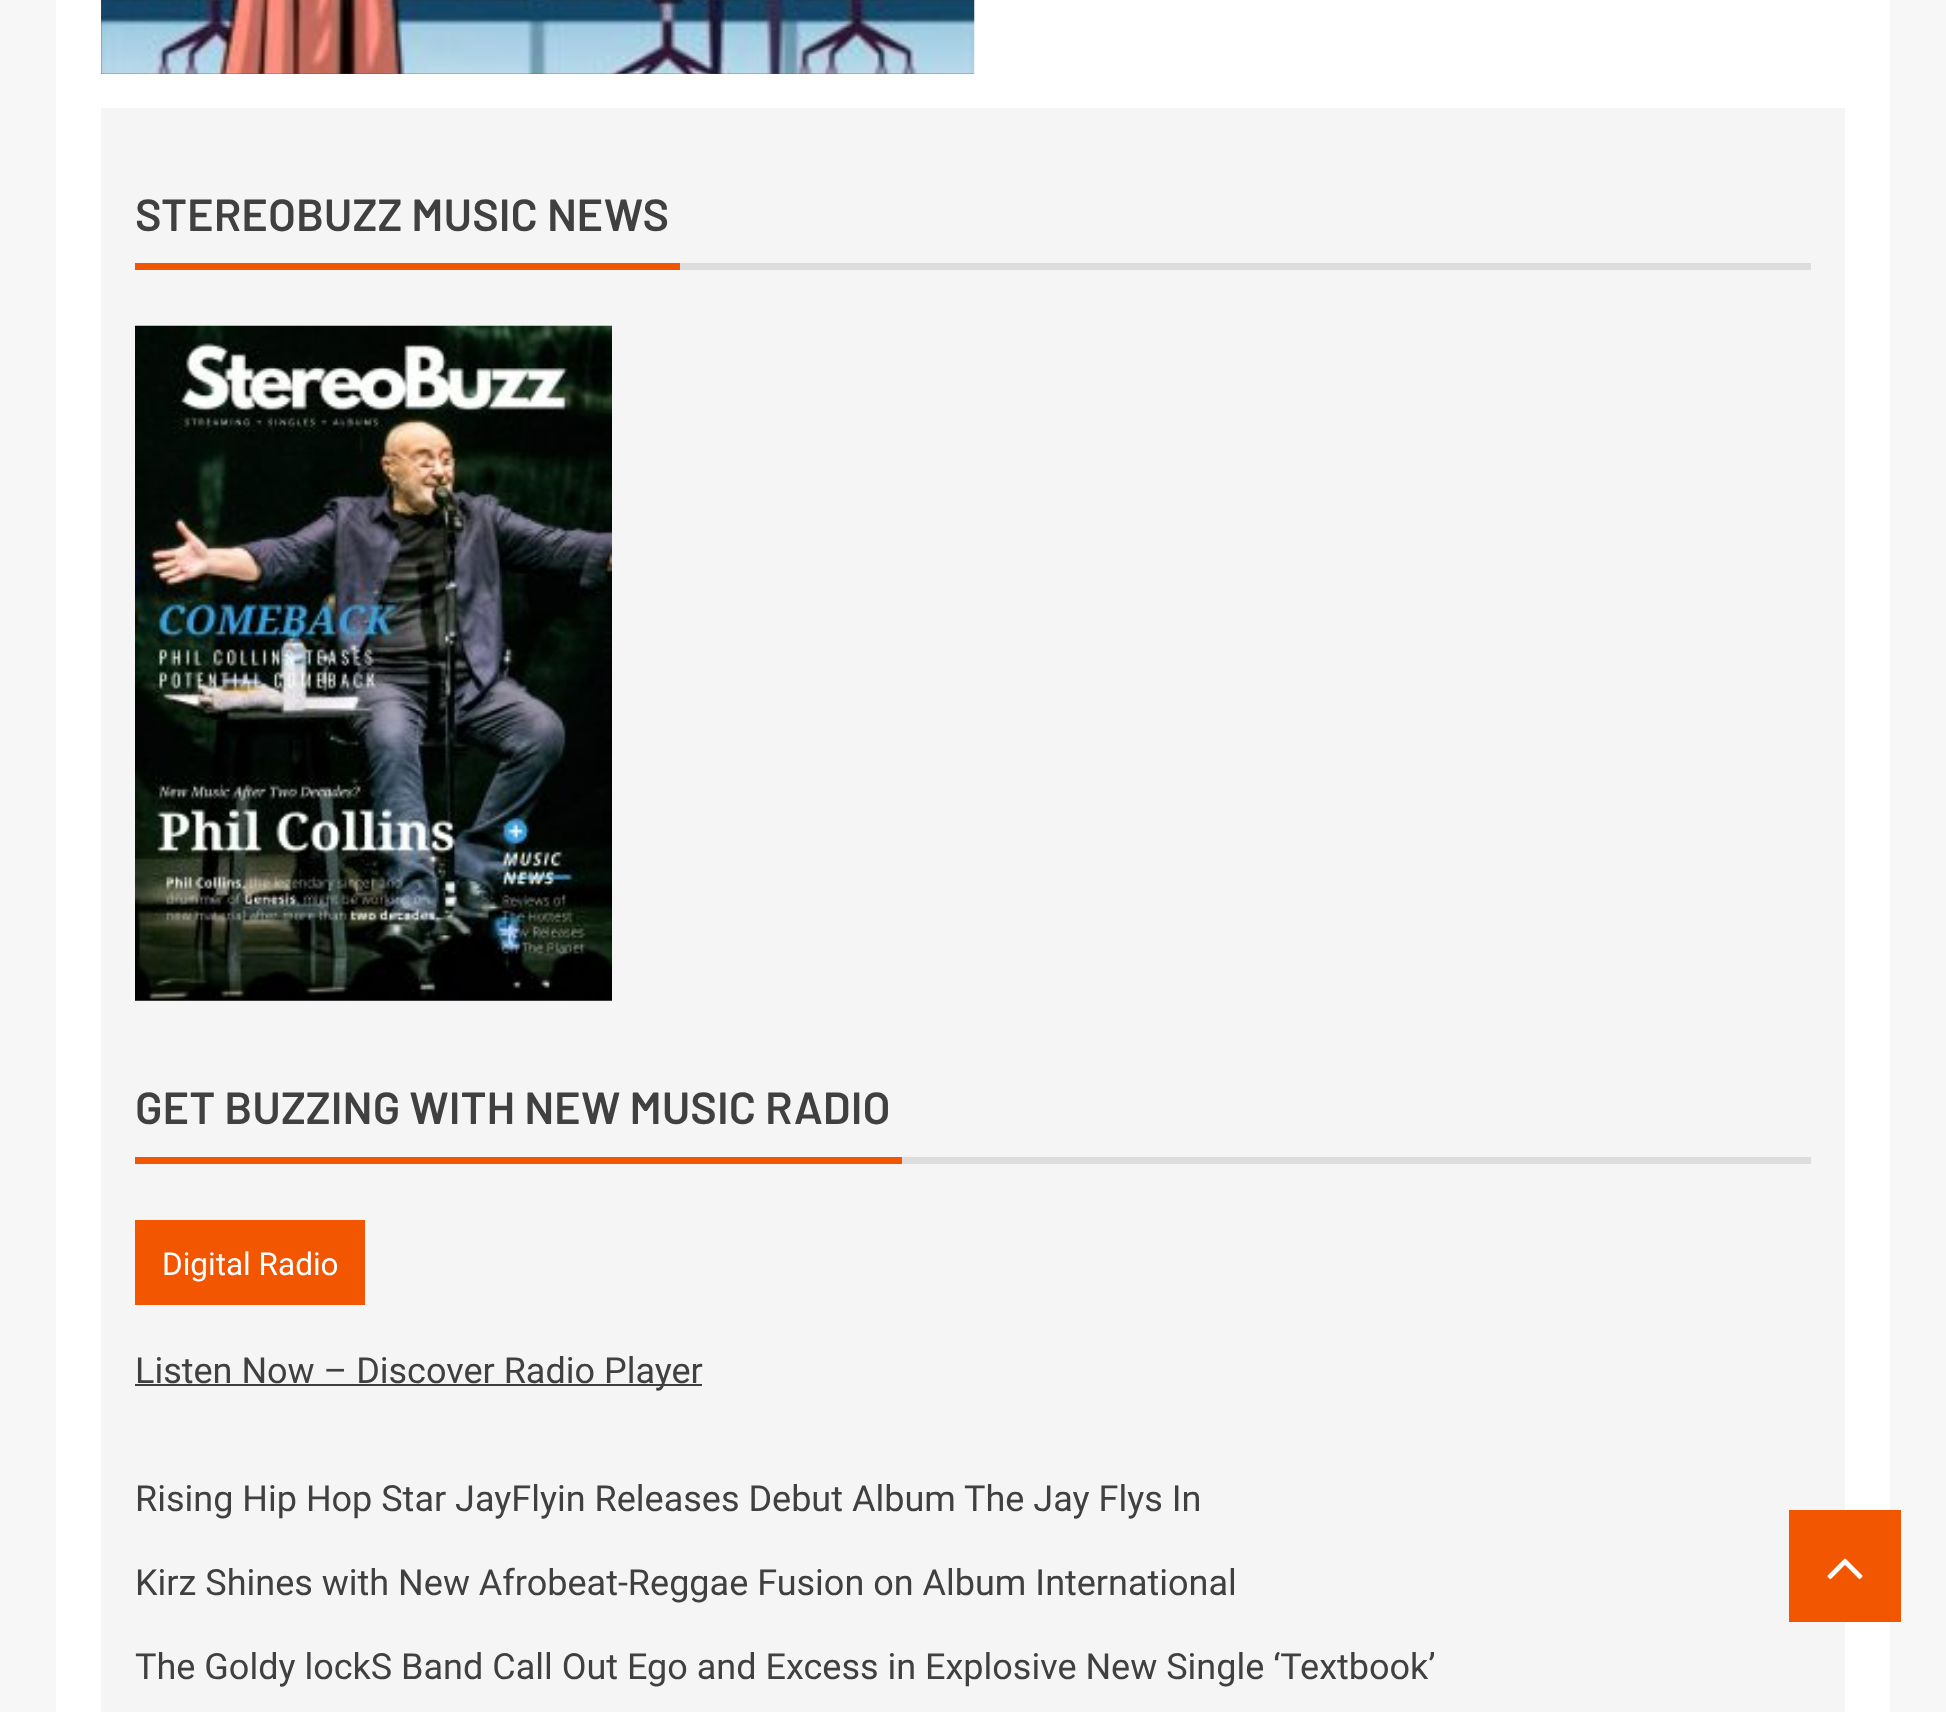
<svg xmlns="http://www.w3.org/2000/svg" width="1946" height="1712">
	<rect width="100%" height="100%" fill="#F7F7F7" />
	<rect x="56" y="0" width="1834" height="1712" fill="#FFFFFF" />
	<rect x="101" y="0" width="873" height="74" fill="#404040" />
	<image x="101" y="0" width="874" height="74" href="assets/img1.png" />
	<rect x="101" y="108" width="1744" height="1604" fill="#F5F5F5" />
	<text x="135" y="231" font-family="Barlow" font-size="45" font-weight="600" fill="#404040">STEREOBUZZ MUSIC NEWS</text>
	<rect x="135" y="263" width="545" height="7" fill="#F25600" />
	<rect x="680" y="263" width="1131" height="7" fill="#DDDDDD" />
	<image x="135" y="325" width="477" height="676" href="assets/img2.png" />
	<text x="135" y="1124" font-family="Barlow" font-size="45" font-weight="600" fill="#404040">GET BUZZING WITH NEW MUSIC RADIO</text>
	<rect x="135" y="1157" width="767" height="7" fill="#F25600" />
	<rect x="902" y="1157" width="909" height="7" fill="#DDDDDD" />
	<rect x="135" y="1220" width="230" height="85" fill="#F25600" />
	<text x="162" y="1275" font-family="Roboto" font-size="31.5" fill="#FFFFFF">Digital Radio</text>
	<rect x="135" y="1384" width="567" height="2" fill="#404040" />
	<g font-family="Roboto" font-size="36" fill="#404040">
		<text x="135" y="1383">Listen Now – Discover Radio Player</text>
		<text x="135" y="1511">Rising Hip Hop Star JayFlyin Releases Debut Album The Jay Flys In</text>
		<text x="135" y="1595">Kirz Shines with New Afrobeat-Reggae Fusion on Album International</text>
		<text x="135" y="1679">The Goldy lockS Band Call Out Ego and Excess in Explosive New Single ‘Textbook’</text>
	</g>
	<rect x="1789" y="1510" width="112" height="112" fill="#F25600" />
	<image x="1827" y="1558" width="36" height="21" href="assets/img3.png" />
</svg>
